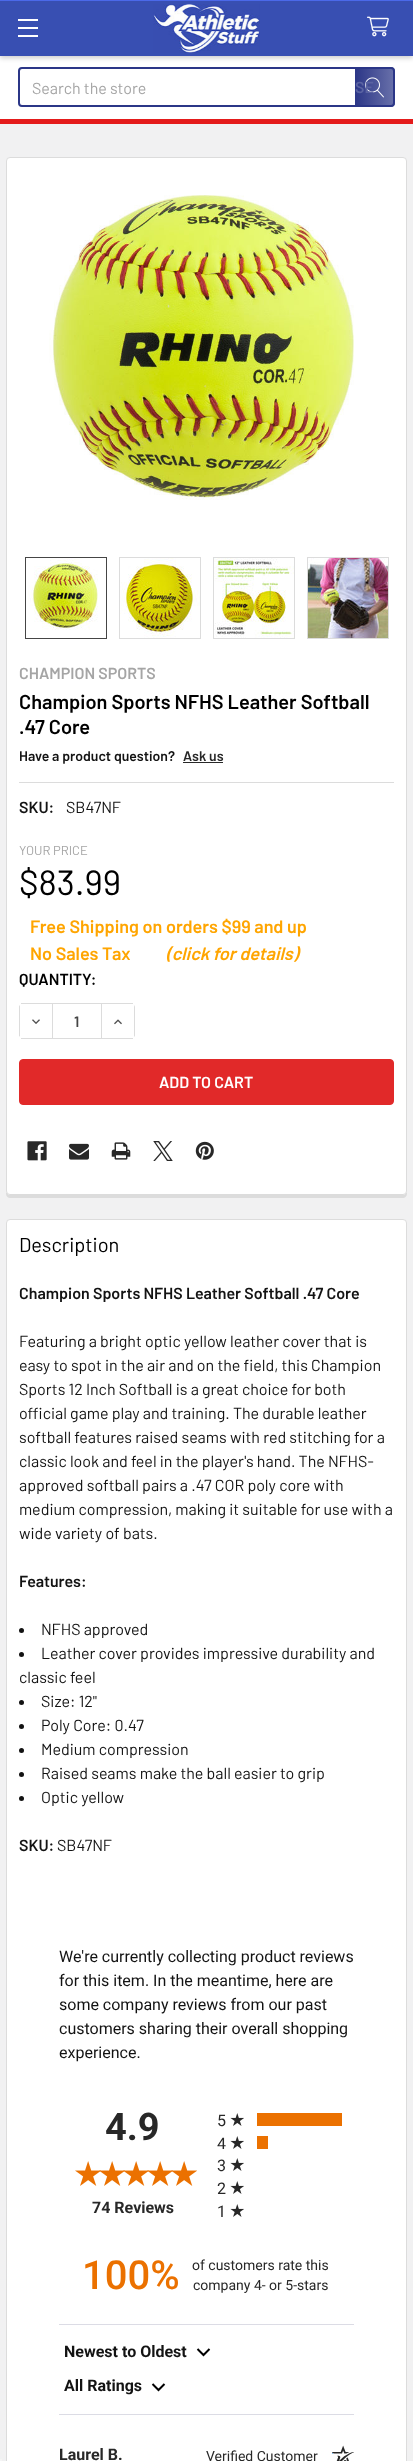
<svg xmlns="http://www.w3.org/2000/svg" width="413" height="2461">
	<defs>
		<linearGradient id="g1" gradientUnits="userSpaceOnUse" x1="355" y1="87" x2="395" y2="87"><stop offset="0" stop-color="#2B3687" /><stop offset="1" stop-color="#2B3687" stop-opacity="0.7" /></linearGradient>
	</defs>
	<rect width="100%" height="100%" fill="#F1F1F2" />
	<rect x="0" y="56" width="413" height="63" fill="#FFFFFF" />
	<rect x="0" y="2" width="413" height="56" fill="#000000" fill-opacity="0.2" filter="blur(2.5px)" />
	<rect x="0" y="1" width="413" height="55" fill="#384FB2" />
	<rect x="0" y="0" width="413" height="1" fill="#4B69E9" />
	<rect x="18" y="27" width="20" height="2" fill="#FFFFFF" />
	<rect x="18" y="19" width="20" height="2" fill="#FFFFFF" />
	<rect x="18" y="35" width="20" height="2" fill="#FFFFFF" />
	<image x="153" y="4" width="107" height="49" href="assets/img1.png" />
	<image x="367" y="16" width="22" height="21" href="assets/img2.png" />
	<rect x="19" y="68" width="375" height="38" rx="3" fill="none" stroke="#2B3687" stroke-width="2" />
	<text x="32" y="94" font-family="Barlow" font-size="16" fill="#A5A5A5">Search the store</text>
	<path d="M355 67H391C393 67 395 69 395 71V103C395 105 393 107 391 107H355Z" fill="url(#g1)" />
	<image x="365" y="77" width="19" height="21" href="assets/img3.png" />
	<text x="355" y="93" font-family="Barlow" font-size="16" font-weight="600" fill="#5A63A2">SE</text>
	<rect x="0" y="119" width="413" height="5" fill="#E41B1B" />
	<rect x="0" y="2459" width="2" height="2" fill="#F5F5F5" />
	<path d="M6 1191V1194C6 1196 8 1198 10 1198H403C405 1198 407 1196 407 1194V1191C407 1193 405 1195 403 1195H10C8 1195 6 1193 6 1191Z" fill="#DCDCDC" />
	<rect x="6.5" y="157.5" width="400" height="1037" rx="3.5" fill="#FFFFFF" stroke="#DCDCDC" />
	<image x="49" y="195" width="305" height="305" href="assets/img4.png" />
	<rect x="25.5" y="557.5" width="81" height="81" fill="none" stroke="#454545" />
	<image x="28" y="558" width="70" height="72" href="assets/img5.png" />
	<rect x="119.5" y="557.5" width="81" height="81" fill="none" stroke="#DCDCDC" />
	<image x="120" y="558" width="80" height="80" href="assets/img6.png" />
	<rect x="213.5" y="557.5" width="81" height="81" fill="none" stroke="#DCDCDC" />
	<image x="214" y="558" width="80" height="80" href="assets/img7.png" />
	<rect x="307.5" y="557.5" width="81" height="81" fill="none" stroke="#DCDCDC" />
	<image x="308" y="558" width="80" height="80" href="assets/img8.png" />
	<text x="19" y="679" font-family="Barlow" font-size="16" font-weight="600" fill="#A5A5A5">CHAMPION SPORTS</text>
	<g font-family="Barlow" font-size="20" font-weight="600" fill="#000000">
		<text x="19" y="709">Champion Sports NFHS Leather Softball</text>
		<text x="19" y="734">.47 Core</text>
	</g>
	<text x="19" y="761" font-family="Barlow" font-size="14" font-weight="600" fill="#131313">Have a product question?</text>
	<text x="183" y="761" font-family="Barlow" font-size="14" font-weight="600" fill="#282828">Ask us</text>
	<rect x="183" y="762" width="40" height="1" fill="#282828" />
	<rect x="19" y="782" width="375" height="1" fill="#DCDCDC" />
	<text x="19" y="813" font-family="Barlow" font-size="16" font-weight="600" fill="#131313">SKU:</text>
	<text x="66" y="813" font-family="Barlow" font-size="16" fill="#131313">SB47NF</text>
	<text x="19" y="855" font-family="Barlow" font-size="13" fill="#A5A5A5">YOUR PRICE</text>
	<text x="19" y="895" font-family="Barlow" font-size="35" fill="#000000">$83.99</text>
	<g font-family="Barlow" font-size="18" font-weight="600" fill="#FFA500">
		<text x="30" y="933">Free Shipping on orders $99 and up</text>
		<text x="30" y="960">No Sales Tax</text>
	</g>
	<text x="166" y="960" font-family="Barlow" font-size="18" font-weight="600" font-style="italic" fill="#FFA500">(click for details)</text>
	<text x="19" y="985" font-family="Barlow" font-size="16" font-weight="600" fill="#000000">QUANTITY:</text>
	<rect x="21" y="1003" width="112" height="1" fill="#DCDCDC" />
	<rect x="21" y="1038" width="112" height="1" fill="#DCDCDC" />
	<rect x="52" y="1004" width="1" height="34" fill="#DCDCDC" />
	<path d="M19 1007V1035.5L20 1037V1005C19.5 1005.5 19 1006 19 1007Z" fill="#DCDCDC" />
	<image x="32" y="1019" width="8" height="5" href="assets/img9.png" />
	<text x="74" y="1027" font-family="Barlow" font-size="15" font-weight="600" fill="#454545">1</text>
	<path d="M135 1035V1006.5L134 1005V1037C134.5 1036.5 135 1036 135 1035Z" fill="#DCDCDC" />
	<rect x="101" y="1004" width="1" height="34" fill="#DCDCDC" />
	<image x="114" y="1019" width="8" height="6" href="assets/img10.png" />
	<rect x="19.5" y="1059.5" width="374" height="45" rx="3.5" fill="#E12929" stroke="#E12929" />
	<text x="159" y="1088" font-family="Barlow" font-size="16" font-weight="600" fill="#FFFFFF">ADD TO CART</text>
	<image x="27" y="1141" width="20" height="20" href="assets/img11.png" />
	<image x="69" y="1143" width="20" height="17" href="assets/img12.png" />
	<image x="111" y="1142" width="20" height="18" href="assets/img13.png" />
	<image x="153" y="1141" width="20" height="20" href="assets/img14.png" />
	<image x="195" y="1141" width="19" height="19" href="assets/img15.png" />
	<rect x="6.5" y="1219.5" width="400" height="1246" rx="3.5" fill="#FFFFFF" stroke="#DCDCDC" />
	<text x="19" y="1252" font-family="Barlow" font-size="20" fill="#000000">Description</text>
	<text x="19" y="1299" font-family="Barlow" font-size="16" font-weight="600" fill="#131313">Champion Sports NFHS Leather Softball .47 Core</text>
	<g font-family="Barlow" font-size="16" fill="#131313">
		<text x="19" y="1347">Featuring a bright optic yellow leather cover that is</text>
		<text x="19" y="1371">easy to spot in the air and on the field, this Champion</text>
		<text x="19" y="1395">Sports 12 Inch Softball is a great choice for both</text>
		<text x="19" y="1419">official game play and training. The durable leather</text>
		<text x="19" y="1443">softball features raised seams with red stitching for a</text>
		<text x="19" y="1467">classic look and feel in the player's hand. The NFHS-</text>
		<text x="19" y="1491">approved softball pairs a .47 COR poly core with</text>
		<text x="19" y="1515">medium compression, making it suitable for use with a</text>
		<text x="19" y="1539">wide variety of bats.</text>
	</g>
	<text x="19" y="1587" font-family="Barlow" font-size="16" font-weight="600" fill="#131313">Features:</text>
	<circle cx="21.5" cy="1630.5" r="2.5" fill="#131313" />
	<text x="41" y="1635" font-family="Barlow" font-size="16" fill="#131313">NFHS approved</text>
	<circle cx="21.5" cy="1654.5" r="2.5" fill="#131313" />
	<g font-family="Barlow" font-size="16" fill="#131313">
		<text x="41" y="1659">Leather cover provides impressive durability and</text>
		<text x="19" y="1683">classic feel</text>
	</g>
	<circle cx="21.5" cy="1702.5" r="2.5" fill="#131313" />
	<text x="41" y="1707" font-family="Barlow" font-size="16" fill="#131313">Size: 12"</text>
	<circle cx="21.5" cy="1726.5" r="2.5" fill="#131313" />
	<text x="41" y="1731" font-family="Barlow" font-size="16" fill="#131313">Poly Core: 0.47</text>
	<circle cx="21.5" cy="1750.5" r="2.5" fill="#131313" />
	<text x="41" y="1755" font-family="Barlow" font-size="16" fill="#131313">Medium compression</text>
	<circle cx="21.5" cy="1774.5" r="2.5" fill="#131313" />
	<text x="41" y="1779" font-family="Barlow" font-size="16" fill="#131313">Raised seams make the ball easier to grip</text>
	<circle cx="21.5" cy="1798.5" r="2.5" fill="#131313" />
	<text x="41" y="1803" font-family="Barlow" font-size="16" fill="#131313">Optic yellow</text>
	<text x="19" y="1851" font-family="Barlow" font-size="16" font-weight="600" fill="#131313">SKU:</text>
	<text x="57" y="1851" font-family="Barlow" font-size="16" fill="#131313">SB47NF</text>
	<g font-family="Roboto" font-size="16" fill="#131313">
		<text x="59" y="1962">We're currently collecting product reviews</text>
		<text x="59" y="1986">for this item. In the meantime, here are</text>
		<text x="59" y="2010">some company reviews from our past</text>
		<text x="59" y="2034">customers sharing their overall shopping</text>
		<text x="59" y="2058">experience.</text>
	</g>
	<text x="105" y="2140" font-family="Roboto" font-size="38" font-weight="700" fill="#282828">4.9</text>
	<image x="75" y="2161" width="26" height="25" href="assets/img16.png" />
	<image x="99" y="2161" width="26" height="25" href="assets/img17.png" />
	<image x="123" y="2161" width="26" height="25" href="assets/img17.png" />
	<image x="147" y="2161" width="26" height="25" href="assets/img17.png" />
	<image x="171" y="2161" width="26" height="25" href="assets/img17.png" />
	<text x="92" y="2213" font-family="Roboto" font-size="16" font-weight="700" fill="#282828">74 Reviews</text>
	<text x="217" y="2126" font-family="Roboto" font-size="16" fill="#282828">5</text>
	<image x="230" y="2113" width="14" height="13" href="assets/img18.png" />
	<rect x="257" y="2113" width="85" height="13" fill="#EB7100" />
	<text x="217" y="2149" font-family="Roboto" font-size="16" fill="#282828">4</text>
	<image x="230" y="2136" width="14" height="13" href="assets/img18.png" />
	<rect x="257" y="2136" width="11" height="13" fill="#EB7100" />
	<text x="217" y="2171" font-family="Roboto" font-size="16" fill="#282828">3</text>
	<image x="230" y="2158" width="14" height="13" href="assets/img18.png" />
	<text x="217" y="2194" font-family="Roboto" font-size="16" fill="#282828">2</text>
	<image x="230" y="2181" width="14" height="13" href="assets/img18.png" />
	<text x="217" y="2217" font-family="Roboto" font-size="16" fill="#282828">1</text>
	<image x="230" y="2204" width="14" height="13" href="assets/img18.png" />
	<text x="82" y="2289" font-family="Roboto" font-size="40" font-weight="500" fill="#EB7100">100%</text>
	<g font-family="Roboto" font-size="14" fill="#282828">
		<text x="192" y="2270">of customers rate this</text>
		<text x="193" y="2290">company 4- or 5-stars</text>
	</g>
	<rect x="59" y="2324" width="295" height="1" fill="#DCDCE5" />
	<rect x="59" y="2414" width="295" height="1" fill="#DCDCE5" />
	<text x="64" y="2357" font-family="Roboto" font-size="16" font-weight="700" fill="#131313">Newest to Oldest</text>
	<path d="M209.5 2349L203.5 2355L197.5 2349" fill="none" stroke="#000000" stroke-width="2" />
	<text x="64" y="2391" font-family="Roboto" font-size="16" font-weight="700" fill="#131313">All Ratings</text>
	<path d="M164.5 2384L158.5 2390L152.5 2384" fill="none" stroke="#000000" stroke-width="2" />
	<text x="59" y="2460" font-family="Roboto" font-size="16" font-weight="700" fill="#282828">Laurel B.</text>
	<text x="206" y="2461" font-family="Roboto" font-size="14" fill="#282828">Verified Customer</text>
	<image x="332" y="2445" width="22" height="16" href="assets/img19.png" />
</svg>
